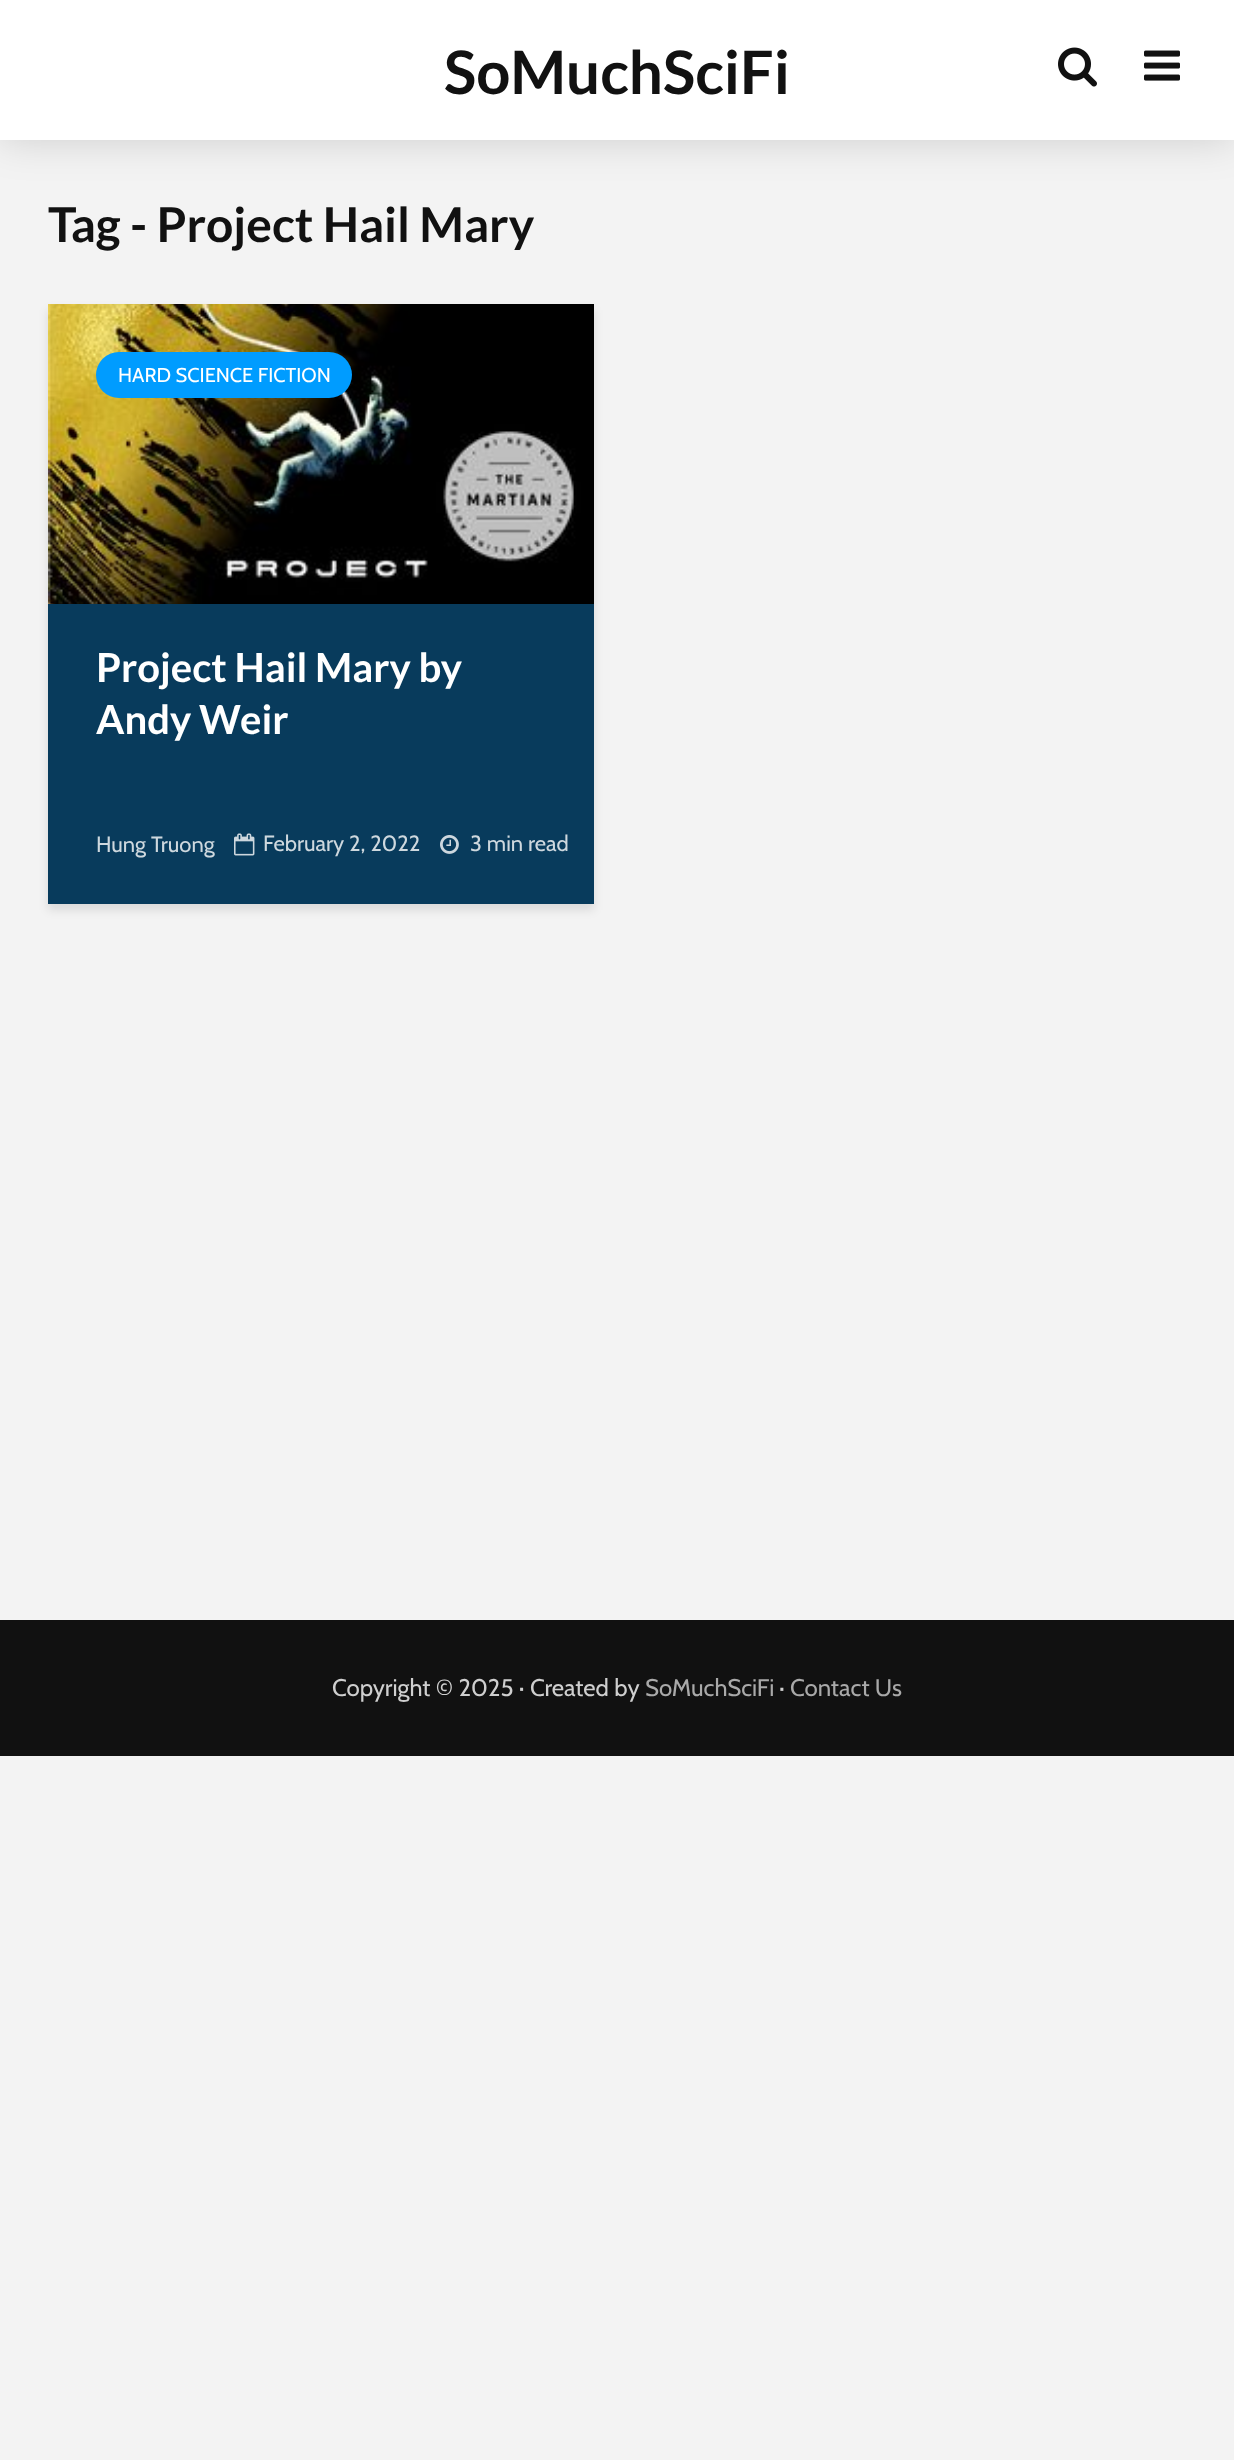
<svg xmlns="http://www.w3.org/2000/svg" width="1234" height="2460">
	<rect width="100%" height="100%" fill="#F3F3F3" />
	<rect x="0" y="0" width="1234" height="140" fill="#000000" fill-opacity="0.15" filter="blur(20px)" />
	<rect x="0" y="0" width="1234" height="140" fill="#FFFFFF" />
	<text x="444" y="94" font-family="Lato" font-size="60" font-weight="700" fill="#111111">SoMuchSciFi</text>
	<image x="1058" y="47" width="39" height="40" href="assets/img1.png" />
	<image x="1144" y="50" width="36" height="31" href="assets/img2.png" />
	<text x="48" y="242" font-family="Lato" font-size="48" font-weight="700" fill="#111111">Tag - Project Hail Mary</text>
	<rect x="48" y="310" width="546" height="600" fill="#000101" fill-opacity="0.1" filter="blur(5px)" />
	<rect x="48" y="604" width="546" height="300" fill="#083B5C" />
	<image x="48" y="304" width="546" height="300" href="assets/img3.png" />
	<rect x="96" y="352" width="256" height="46" rx="23" fill="#009CFF" />
	<text x="118" y="382" font-family="Cabin" font-size="20" fill="#FFFFFF">HARD SCIENCE FICTION</text>
	<g font-family="Lato" font-size="40" font-weight="700" fill="#FFFFFF">
		<text x="96" y="682">Project Hail Mary by</text>
		<text x="96" y="734">Andy Weir</text>
	</g>
	<text x="96" y="852" font-family="Cabin" font-size="22" fill="#CED8DE">Hung Truong</text>
	<image x="234" y="833" width="21" height="23" href="assets/img4.png" />
	<text x="263" y="851" font-family="Cabin" font-size="22" fill="#CED8DE">February 2, 2022</text>
	<image x="440" y="835" width="19" height="19" href="assets/img5.png" />
	<text x="470" y="851" font-family="Cabin" font-size="22" fill="#CED8DE">3 min read</text>
	<rect x="0" y="1620" width="1234" height="136" fill="#111111" />
	<text x="332" y="1696" font-family="Cabin" font-size="24" fill="#CFCFCF">Copyright © 2025 · Created by</text>
	<text x="645" y="1696" font-family="Cabin" font-size="24" fill="#A9A9A9">SoMuchSciFi</text>
	<text x="779" y="1696" font-family="Cabin" font-size="24" fill="#CFCFCF">·</text>
	<text x="790" y="1696" font-family="Cabin" font-size="24" fill="#A9A9A9">Contact Us</text>
</svg>
